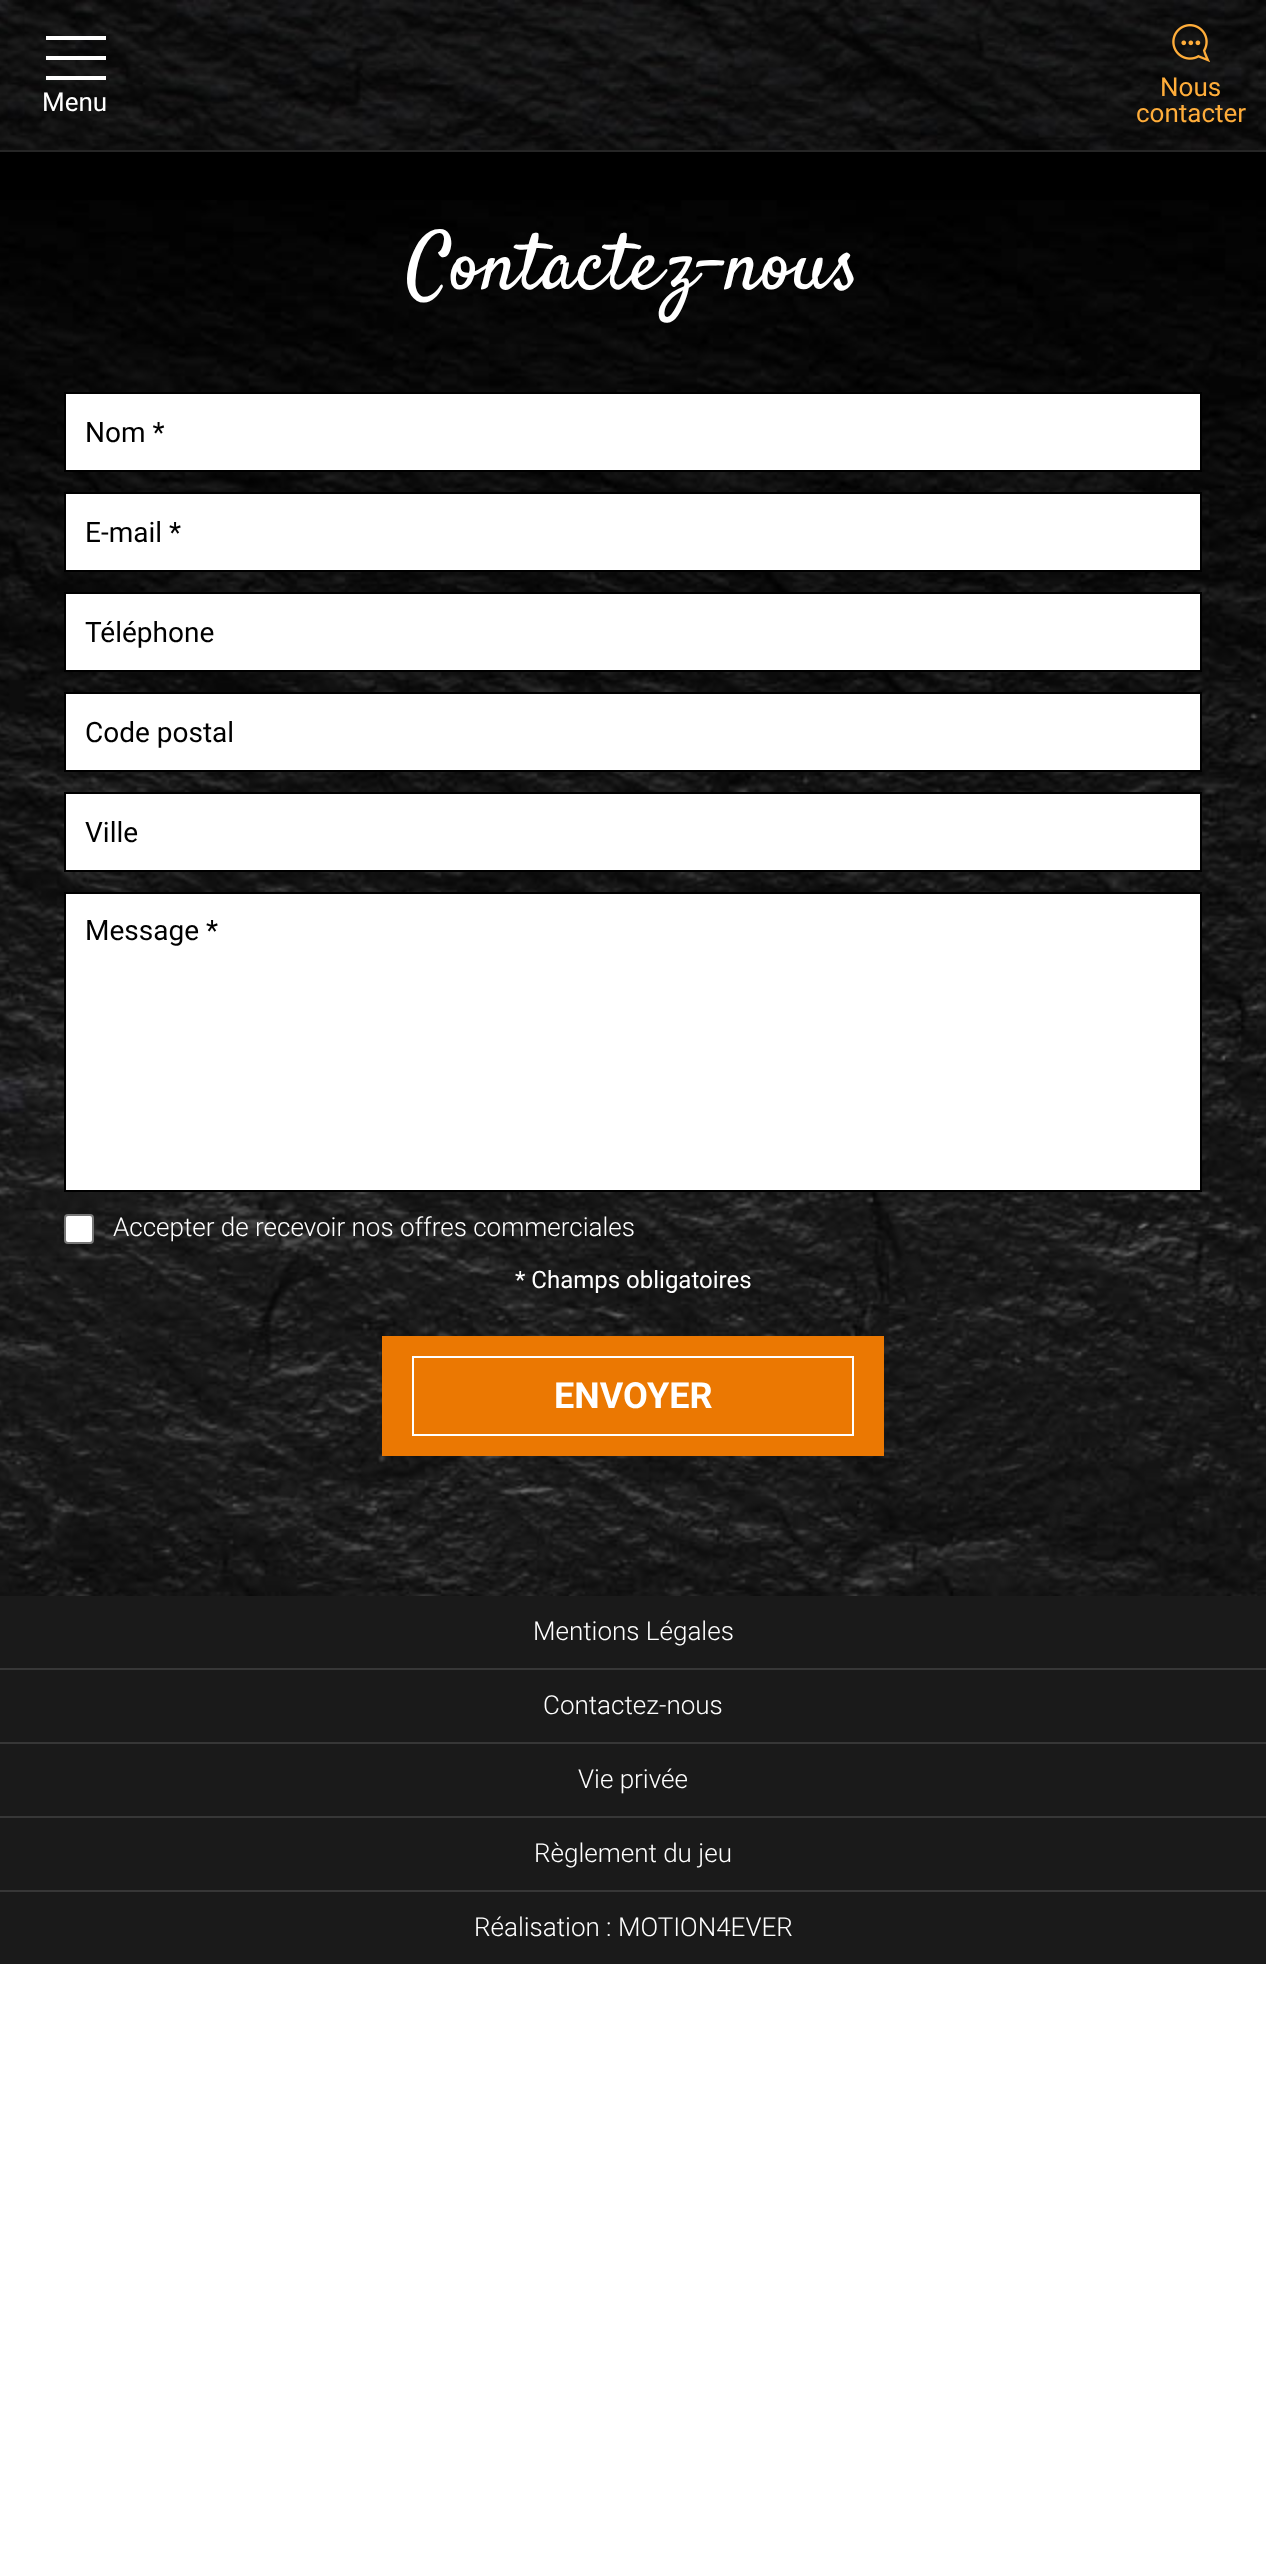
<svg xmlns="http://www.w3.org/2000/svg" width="1266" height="2574">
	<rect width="100%" height="100%" fill="#FFFFFF" />
	<image x="0" y="0" width="1266" height="150" href="assets/img1.png" />
	<rect x="0" y="150" width="1266" height="2" fill="#262626" />
	<rect x="46" y="36" width="60" height="4" fill="#FFFFFF" />
	<rect x="46" y="56" width="60" height="4" fill="#FFFFFF" />
	<rect x="46" y="76" width="60" height="4" fill="#FFFFFF" />
	<text x="42" y="111" font-family="Roboto" font-size="26" fill="#FFFFFF">Menu</text>
	<image x="1172" y="24" width="38" height="39" href="assets/img2.png" />
	<g font-family="Roboto" font-size="26" fill="#FFAD3A">
		<text x="1160" y="96">Nous</text>
		<text x="1136" y="122">contacter</text>
	</g>
	<rect x="0" y="152" width="1266" height="48" fill="#000000" />
	<image x="0" y="200" width="1266" height="1396" href="assets/img3.png" />
	<text x="407" y="288" font-family="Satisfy" font-size="80" fill="#FFFFFF">Contactez-nous</text>
	<rect x="65" y="393" width="1136" height="78" fill="#FFFFFF" stroke="#000000" stroke-width="2" />
	<text x="85" y="442" font-family="Roboto" font-size="28" fill="#000000">Nom *</text>
	<rect x="65" y="493" width="1136" height="78" fill="#FFFFFF" stroke="#000000" stroke-width="2" />
	<text x="85" y="542" font-family="Roboto" font-size="28" fill="#000000">E-mail *</text>
	<rect x="65" y="593" width="1136" height="78" fill="#FFFFFF" stroke="#000000" stroke-width="2" />
	<text x="85" y="642" font-family="Roboto" font-size="28" fill="#000000">Téléphone</text>
	<rect x="65" y="693" width="1136" height="78" fill="#FFFFFF" stroke="#000000" stroke-width="2" />
	<text x="85" y="742" font-family="Roboto" font-size="28" fill="#000000">Code postal</text>
	<rect x="65" y="793" width="1136" height="78" fill="#FFFFFF" stroke="#000000" stroke-width="2" />
	<text x="85" y="842" font-family="Roboto" font-size="28" fill="#000000">Ville</text>
	<rect x="65" y="893" width="1136" height="298" fill="#FFFFFF" stroke="#000000" stroke-width="2" />
	<text x="85" y="940" font-family="Roboto" font-size="28" fill="#000000">Message *</text>
	<rect x="65" y="1215" width="28" height="28" rx="3" fill="#FFFFFF" stroke="#767676" stroke-width="2" />
	<text x="113" y="1236" font-family="Roboto" font-size="26" font-weight="300" fill="#FFFFFF">Accepter de recevoir nos offres commerciales</text>
	<text x="515" y="1288" font-family="Roboto" font-size="24" fill="#FFFFFF">* Champs obligatoires</text>
	<rect x="382" y="1336" width="502" height="120" fill="#EB7802" />
	<rect x="413" y="1357" width="440" height="78" fill="none" stroke="#FFFFFF" stroke-width="2" />
	<text x="554" y="1408" font-family="Roboto" font-size="36" font-weight="700" fill="#FFFFFF">ENVOYER</text>
	<rect x="0" y="1596" width="1266" height="368" fill="#1A1A1A" />
	<text x="533" y="1640" font-family="Roboto" font-size="26" font-weight="300" fill="#FFFFFF">Mentions Légales</text>
	<rect x="0" y="1668" width="1266" height="2" fill="#373737" />
	<text x="543" y="1714" font-family="Roboto" font-size="26" font-weight="300" fill="#FFFFFF">Contactez-nous</text>
	<rect x="0" y="1742" width="1266" height="2" fill="#373737" />
	<text x="578" y="1788" font-family="Roboto" font-size="26" font-weight="300" fill="#FFFFFF">Vie privée</text>
	<rect x="0" y="1816" width="1266" height="2" fill="#373737" />
	<text x="534" y="1862" font-family="Roboto" font-size="26" font-weight="300" fill="#FFFFFF">Règlement du jeu</text>
	<rect x="0" y="1890" width="1266" height="2" fill="#373737" />
	<text x="474" y="1936" font-family="Roboto" font-size="26" font-weight="300" fill="#FFFFFF">Réalisation : MOTION4EVER</text>
</svg>
